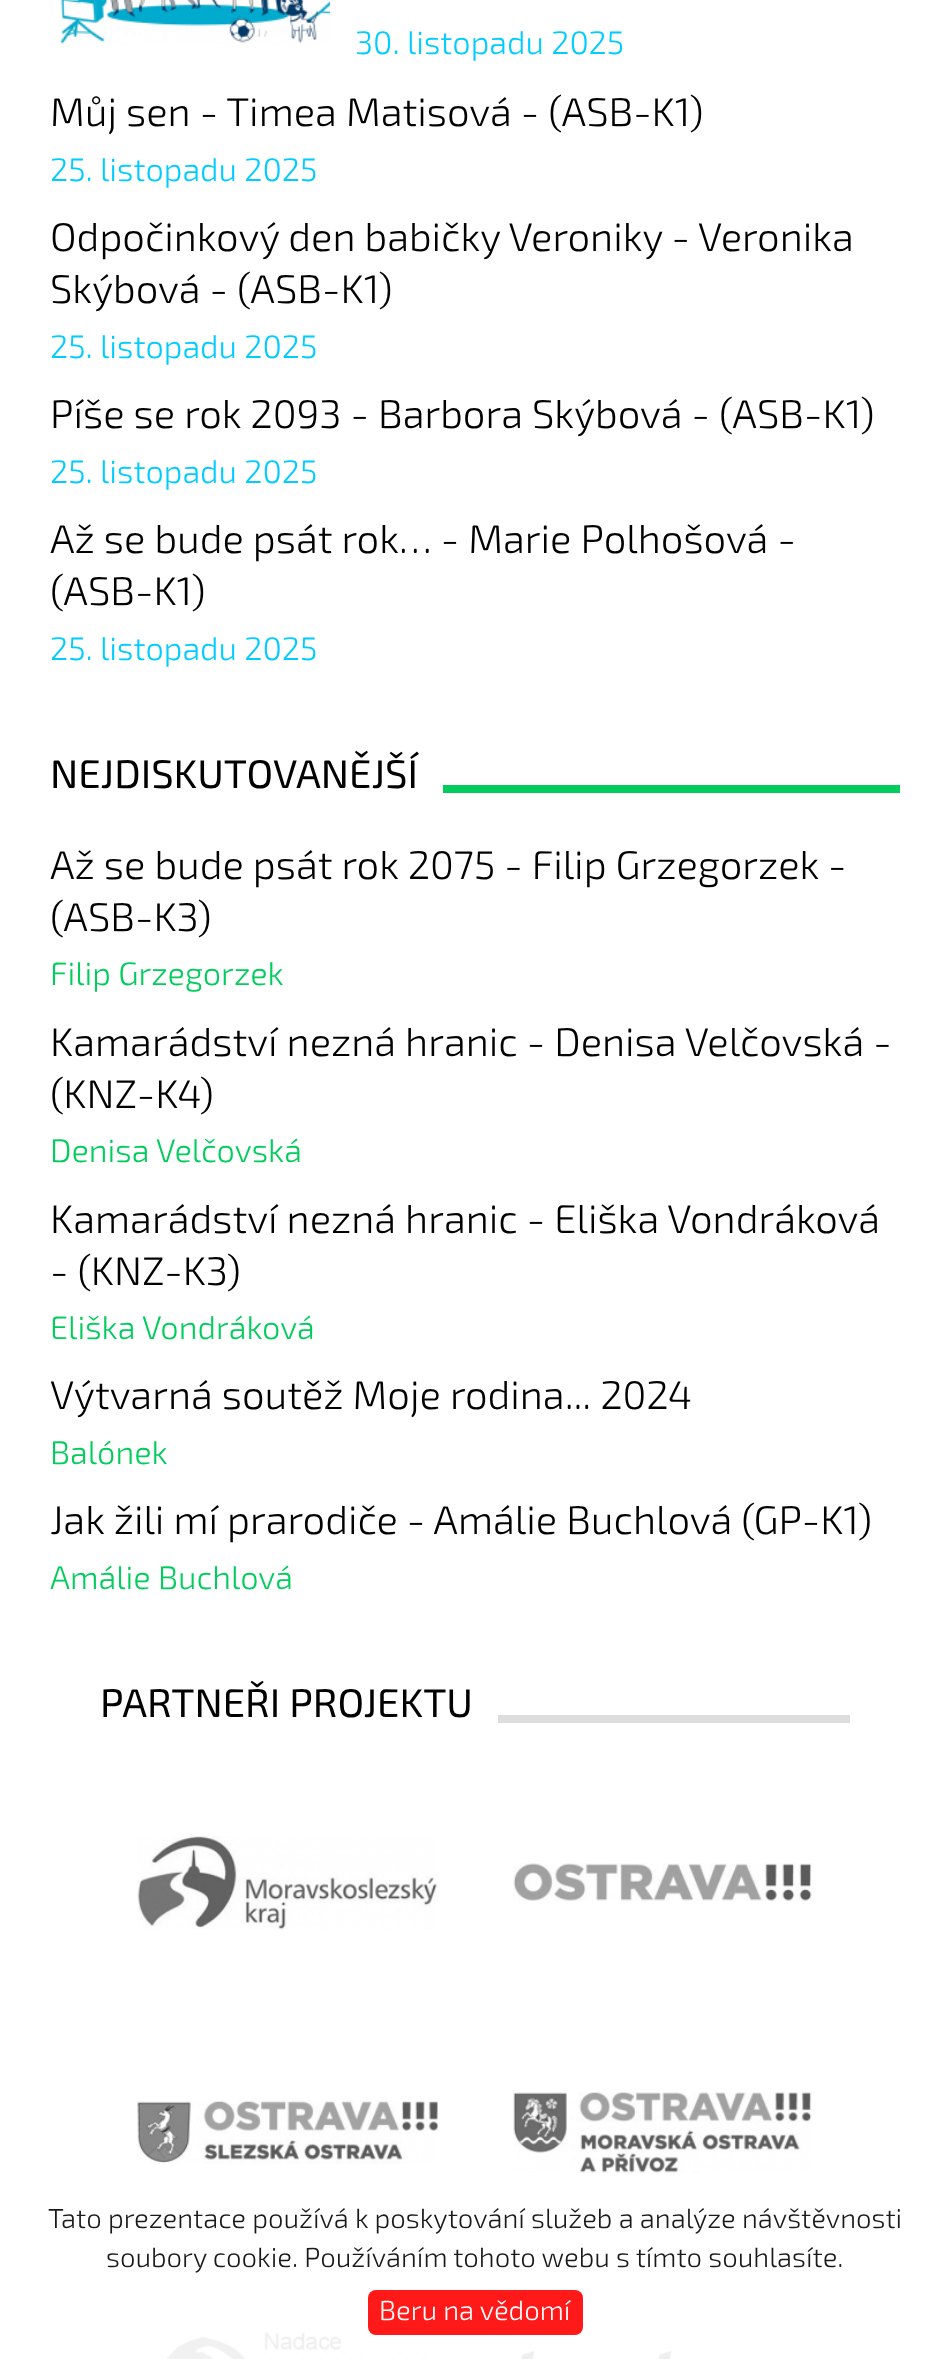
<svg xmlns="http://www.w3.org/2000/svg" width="948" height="2359">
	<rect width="100%" height="100%" fill="#FFFFFF" />
	<image x="60" y="0" width="270" height="44" href="assets/img1.png" />
	<text x="355" y="54" font-family="'Exo 2'" font-size="32.5" font-weight="300" fill="#00CCFF">30. listopadu 2025</text>
	<text x="50" y="126" font-family="'Exo 2'" font-size="40" font-weight="300" fill="#000000">Můj sen - Timea Matisová - (ASB-K1)</text>
	<text x="50" y="181" font-family="'Exo 2'" font-size="32.5" font-weight="300" fill="#00CCFF">25. listopadu 2025</text>
	<g font-family="'Exo 2'" font-size="40" font-weight="300" fill="#000000">
		<text x="50" y="251">Odpočinkový den babičky Veroniky - Veronika</text>
		<text x="50" y="303">Skýbová - (ASB-K1)</text>
	</g>
	<text x="50" y="358" font-family="'Exo 2'" font-size="32.5" font-weight="300" fill="#00CCFF">25. listopadu 2025</text>
	<text x="50" y="428" font-family="'Exo 2'" font-size="40" font-weight="300" fill="#000000">Píše se rok 2093 - Barbora Skýbová - (ASB-K1)</text>
	<text x="50" y="483" font-family="'Exo 2'" font-size="32.5" font-weight="300" fill="#00CCFF">25. listopadu 2025</text>
	<g font-family="'Exo 2'" font-size="40" font-weight="300" fill="#000000">
		<text x="50" y="553">Až se bude psát rok… - Marie Polhošová -</text>
		<text x="50" y="605">(ASB-K1)</text>
	</g>
	<text x="50" y="660" font-family="'Exo 2'" font-size="32.5" font-weight="300" fill="#00CCFF">25. listopadu 2025</text>
	<text x="50" y="788" font-family="'Exo 2'" font-size="40" fill="#000000">NEJDISKUTOVANĚJŠÍ</text>
	<rect x="443" y="785" width="457" height="8" fill="#00CD5C" />
	<g font-family="'Exo 2'" font-size="40" font-weight="300" fill="#000000">
		<text x="50" y="879">Až se bude psát rok 2075 - Filip Grzegorzek -</text>
		<text x="50" y="931">(ASB-K3)</text>
	</g>
	<text x="50" y="985" font-family="'Exo 2'" font-size="32.5" font-weight="300" fill="#00CD5C">Filip Grzegorzek</text>
	<g font-family="'Exo 2'" font-size="40" font-weight="300" fill="#000000">
		<text x="50" y="1056">Kamarádství nezná hranic - Denisa Velčovská -</text>
		<text x="50" y="1108">(KNZ-K4)</text>
	</g>
	<text x="50" y="1162" font-family="'Exo 2'" font-size="32.5" font-weight="300" fill="#00CD5C">Denisa Velčovská</text>
	<g font-family="'Exo 2'" font-size="40" font-weight="300" fill="#000000">
		<text x="50" y="1233">Kamarádství nezná hranic - Eliška Vondráková</text>
		<text x="50" y="1285">- (KNZ-K3)</text>
	</g>
	<text x="50" y="1339" font-family="'Exo 2'" font-size="32.5" font-weight="300" fill="#00CD5C">Eliška Vondráková</text>
	<text x="50" y="1409" font-family="'Exo 2'" font-size="40" font-weight="300" fill="#000000">Výtvarná soutěž Moje rodina... 2024</text>
	<text x="50" y="1464" font-family="'Exo 2'" font-size="32.5" font-weight="300" fill="#00CD5C">Balónek</text>
	<text x="50" y="1534" font-family="'Exo 2'" font-size="40" font-weight="300" fill="#000000">Jak žili mí prarodiče - Amálie Buchlová (GP-K1)</text>
	<text x="50" y="1589" font-family="'Exo 2'" font-size="32.5" font-weight="300" fill="#00CD5C">Amálie Buchlová</text>
	<text x="100" y="1717" font-family="'Exo 2'" font-size="40" fill="#000000">PARTNEŘI PROJEKTU</text>
	<rect x="498" y="1715" width="352" height="8" fill="#DDDDDD" />
	<image x="137" y="1836" width="301" height="94" href="assets/img2.png" />
	<image x="513" y="1863" width="299" height="38" href="assets/img3.png" />
	<image x="137" y="2100" width="301" height="64" href="assets/img4.png" />
	<image x="513" y="2092" width="299" height="81" href="assets/img5.png" />
	<image x="166" y="2332" width="261" height="27" href="assets/img6.png" />
	<image x="520" y="2350" width="152" height="9" href="assets/img7.png" />
	<g font-family="'Exo 2'" font-size="27.5" font-weight="300" fill="#1A1A1A">
		<text x="48" y="2228">Tato prezentace používá k poskytování služeb a analýze návštěvnosti</text>
		<text x="106" y="2267">soubory cookie. Používáním tohoto webu s tímto souhlasíte.</text>
	</g>
	<rect x="368" y="2290" width="215" height="45" rx="8" fill="#FF1919" />
	<text x="379" y="2320" font-family="'Exo 2'" font-size="27.5" font-weight="300" fill="#FFFFFF">Beru na vědomí</text>
</svg>
